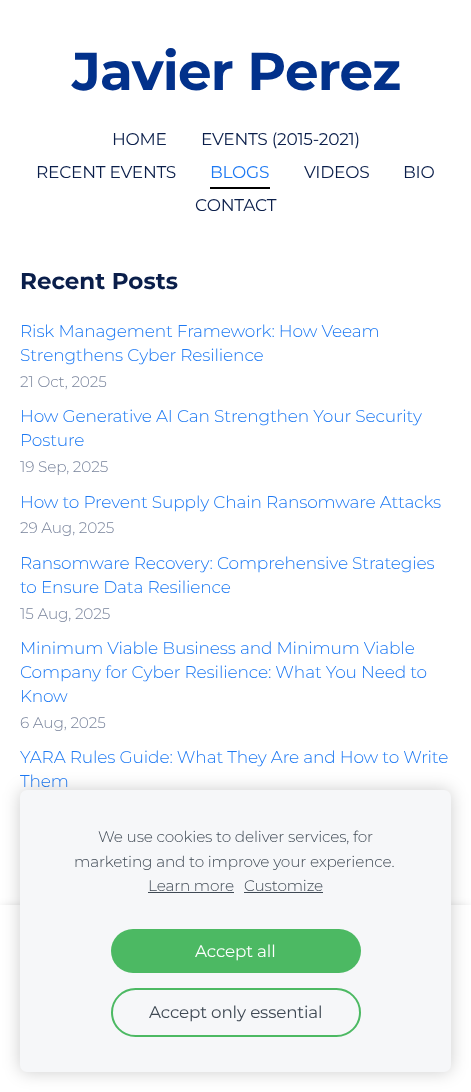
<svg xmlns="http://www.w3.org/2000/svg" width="471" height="1092">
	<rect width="100%" height="100%" fill="#FFFFFF" />
	<text x="72" y="90" font-family="Montserrat" font-size="53.25" font-weight="700" letter-spacing="-0.75" fill="#02318B">Javier Perez</text>
	<g font-family="Montserrat" font-size="17" letter-spacing="-0.25" fill="#0A1E4A">
		<text x="112" y="145">HOME</text>
		<text x="201" y="145">EVENTS (2015-2021)</text>
		<text x="36" y="178">RECENT EVENTS</text>
	</g>
	<text x="210" y="178" font-family="Montserrat" font-size="17" letter-spacing="-0.25" fill="#1D79F3">BLOGS</text>
	<rect x="210" y="187" width="60" height="2" fill="#000000" />
	<g font-family="Montserrat" font-size="17" letter-spacing="-0.25" fill="#0A1E4A">
		<text x="304" y="178">VIDEOS</text>
		<text x="403" y="178">BIO</text>
		<text x="195" y="211">CONTACT</text>
	</g>
	<text x="20" y="289" font-family="Montserrat" font-size="23" font-weight="700" fill="#0A1E4A">Recent Posts</text>
	<g font-family="Montserrat" font-size="17" font-weight="300" letter-spacing="-0.15" fill="#1D79F3">
		<text x="20" y="337">Risk Management Framework: How Veeam</text>
		<text x="20" y="361">Strengthens Cyber Resilience</text>
	</g>
	<text x="20" y="387" font-family="Montserrat" font-size="15.3" font-weight="300" letter-spacing="-0.15" fill="#78839B">21 Oct, 2025</text>
	<g font-family="Montserrat" font-size="17" font-weight="300" letter-spacing="-0.15" fill="#1D79F3">
		<text x="20" y="422">How Generative AI Can Strengthen Your Security</text>
		<text x="20" y="446">Posture</text>
	</g>
	<text x="20" y="472" font-family="Montserrat" font-size="15.3" font-weight="300" letter-spacing="-0.15" fill="#78839B">19 Sep, 2025</text>
	<text x="20" y="508" font-family="Montserrat" font-size="17" font-weight="300" letter-spacing="-0.15" fill="#1D79F3">How to Prevent Supply Chain Ransomware Attacks</text>
	<text x="20" y="533" font-family="Montserrat" font-size="15.3" font-weight="300" letter-spacing="-0.15" fill="#78839B">29 Aug, 2025</text>
	<g font-family="Montserrat" font-size="17" font-weight="300" letter-spacing="-0.15" fill="#1D79F3">
		<text x="20" y="569">Ransomware Recovery: Comprehensive Strategies</text>
		<text x="20" y="593">to Ensure Data Resilience</text>
	</g>
	<text x="20" y="619" font-family="Montserrat" font-size="15.3" font-weight="300" letter-spacing="-0.15" fill="#78839B">15 Aug, 2025</text>
	<g font-family="Montserrat" font-size="17" font-weight="300" letter-spacing="-0.15" fill="#1D79F3">
		<text x="20" y="654">Minimum Viable Business and Minimum Viable</text>
		<text x="20" y="678">Company for Cyber Resilience: What You Need to</text>
		<text x="20" y="702">Know</text>
	</g>
	<text x="20" y="728" font-family="Montserrat" font-size="15.3" font-weight="300" letter-spacing="-0.15" fill="#78839B">6 Aug, 2025</text>
	<g font-family="Montserrat" font-size="17" font-weight="300" letter-spacing="-0.15" fill="#1D79F3">
		<text x="20" y="763">YARA Rules Guide: What They Are and How to Write</text>
		<text x="20" y="787">Them</text>
	</g>
	<rect x="2" y="907" width="467" height="183" fill="#000000" fill-opacity="0.17" filter="blur(5px)" />
	<rect x="0" y="905" width="471" height="187" fill="#FFFFFF" />
	<rect x="20" y="790" width="431" height="282" rx="7" fill="#000000" fill-opacity="0.2" filter="blur(8.5px)" />
	<rect x="20" y="790" width="431" height="282" rx="7" fill="#F6F7F9" />
	<g font-family="Montserrat" font-size="15.3" font-weight="300" letter-spacing="-0.15" fill="#3F4954">
		<text x="98" y="842">We use cookies to deliver services, for</text>
		<text x="74" y="867">marketing and to improve your experience.</text>
		<text x="148" y="891">Learn more</text>
	</g>
	<rect x="148" y="892" width="86" height="1" fill="#3F4954" />
	<text x="244" y="891" font-family="Montserrat" font-size="15.3" font-weight="300" letter-spacing="-0.15" fill="#3F4954">Customize</text>
	<rect x="244" y="892" width="79" height="1" fill="#3F4954" />
	<rect x="111" y="929" width="250" height="44" rx="22" fill="#4CB963" />
	<text x="195" y="957" font-family="Montserrat" font-size="16.75" letter-spacing="-0.15" fill="#FFFFFF">Accept all</text>
	<rect x="112" y="989" width="248" height="47" rx="23.5" fill="none" stroke="#4CB963" stroke-width="2" />
	<text x="149" y="1018" font-family="Montserrat" font-size="16.75" letter-spacing="-0.15" fill="#3F4954">Accept only essential</text>
</svg>
